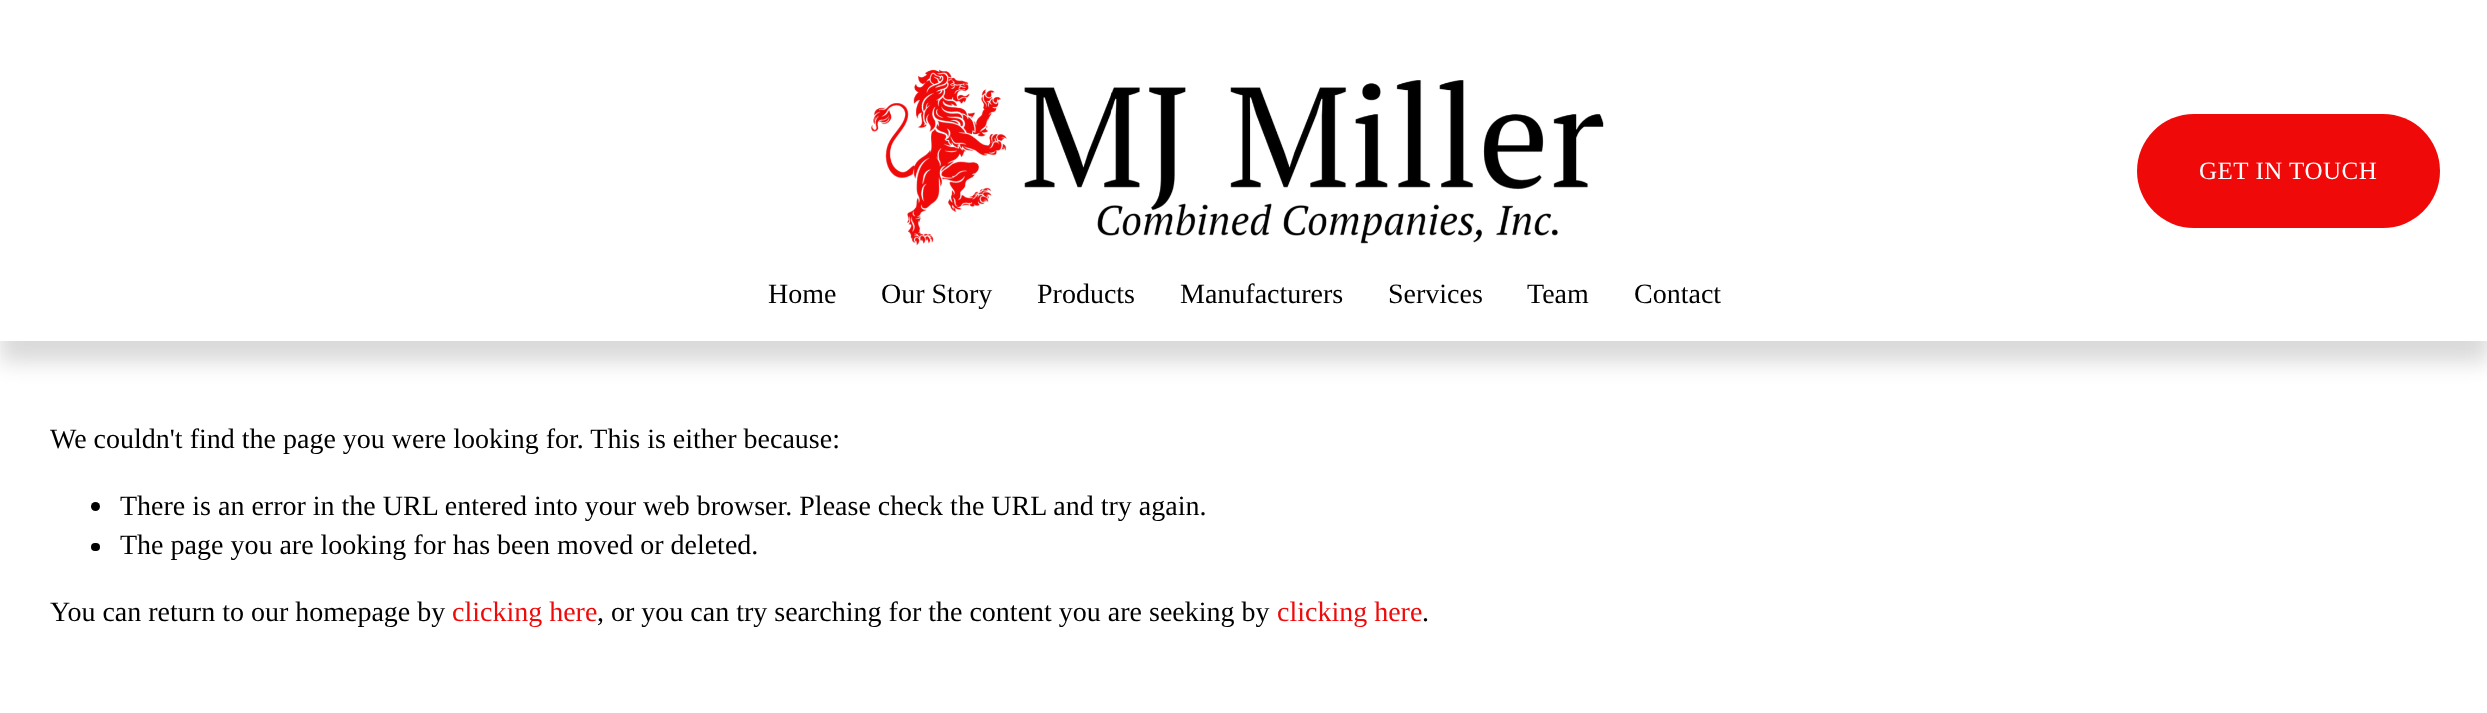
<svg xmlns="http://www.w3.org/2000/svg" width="2487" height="713">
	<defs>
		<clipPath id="clip1"><rect x="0" y="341" width="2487" height="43" /></clipPath>
	</defs>
	<rect width="100%" height="100%" fill="#FFFFFF" />
	<g clip-path="url(#clip1)">
		<rect x="0" y="21" width="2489" height="341" fill="#D9D9D9" filter="blur(10.5px)" />
	</g>
	<rect x="2137" y="114" width="303" height="114" rx="57" fill="#F00909" />
	<text x="2199" y="179" font-family="Liberation Serif" font-size="25" letter-spacing="0.5" fill="#FFFFFF">GET IN TOUCH</text>
	<image x="871" y="69" width="733" height="177" href="assets/img1.png" />
	<g font-family="Liberation Serif" font-size="28" fill="#000000">
		<text x="768" y="303">Home</text>
		<text x="881" y="303">Our Story</text>
		<text x="1037" y="303">Products</text>
		<text x="1180" y="303">Manufacturers</text>
		<text x="1388" y="303">Services</text>
		<text x="1527" y="303">Team</text>
		<text x="1634" y="303">Contact</text>
		<text x="50" y="448">We couldn't find the page you were looking for. This is either because:</text>
	</g>
	<circle cx="95.5" cy="506.5" r="4.5" fill="#000000" />
	<text x="120" y="515" font-family="Liberation Serif" font-size="28" fill="#000000">There is an error in the URL entered into your web browser. Please check the URL and try again.</text>
	<rect x="91" y="543" width="9" height="8" rx="4" fill="#000000" />
	<g font-family="Liberation Serif" font-size="28" fill="#000000">
		<text x="120" y="554">The page you are looking for has been moved or deleted.</text>
		<text x="50" y="621">You can return to our homepage by</text>
	</g>
	<text x="452" y="621" font-family="Liberation Serif" font-size="28" fill="#F00909">clicking here</text>
	<text x="597" y="621" font-family="Liberation Serif" font-size="28" fill="#000000">, or you can try searching for the content you are seeking by</text>
	<text x="1277" y="621" font-family="Liberation Serif" font-size="28" fill="#F00909">clicking here</text>
	<text x="1422" y="621" font-family="Liberation Serif" font-size="28" fill="#000000">.</text>
</svg>
